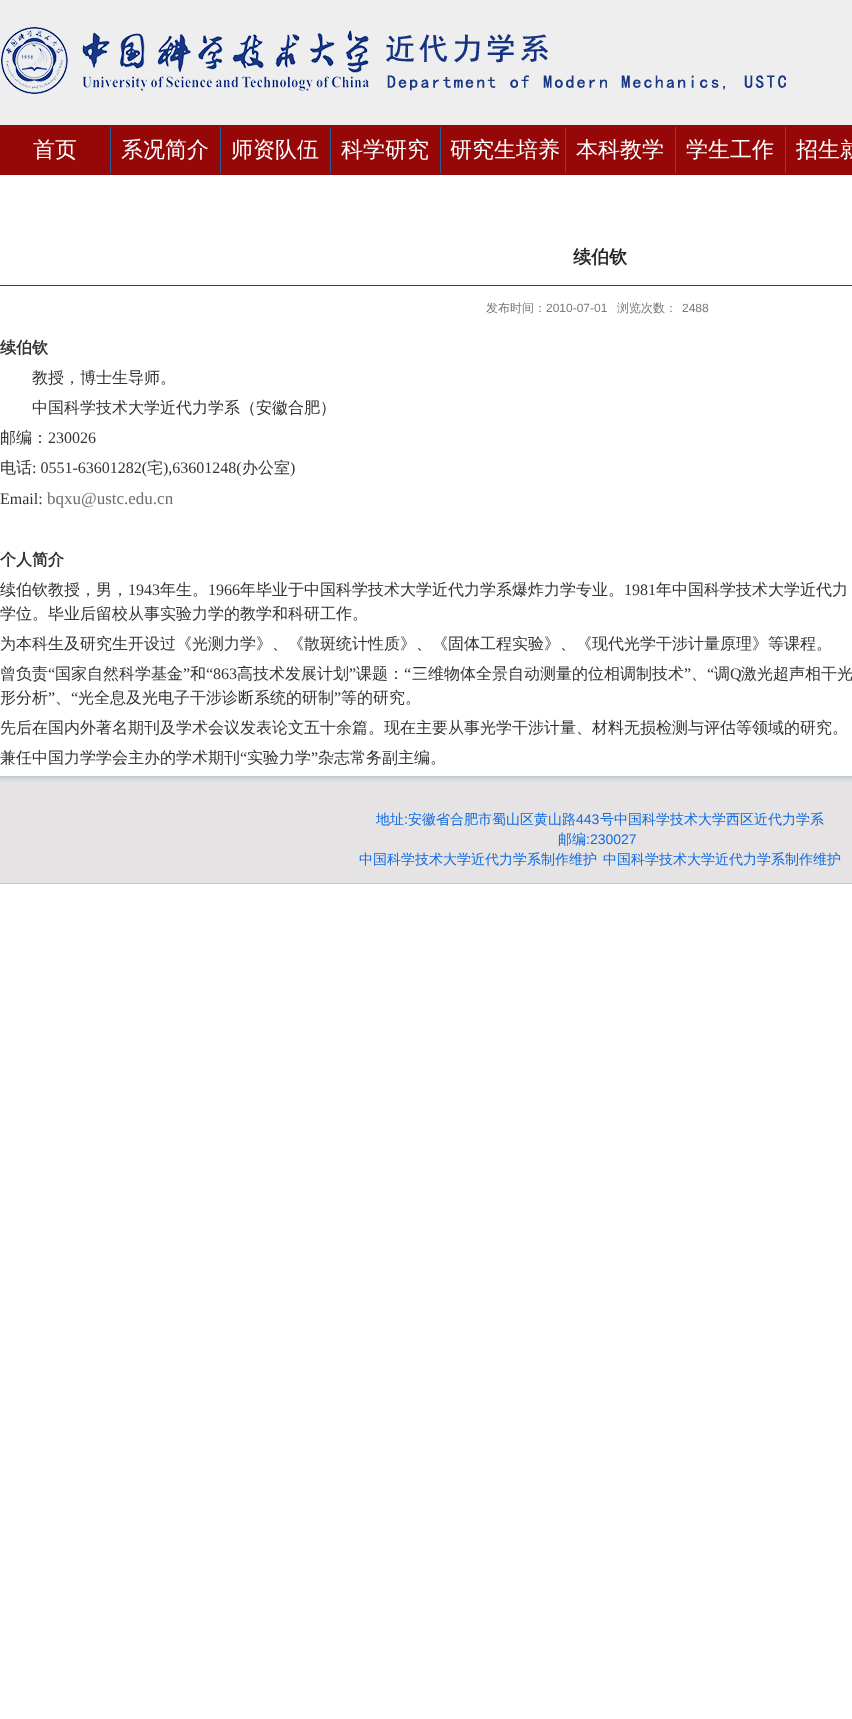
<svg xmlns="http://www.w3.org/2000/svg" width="852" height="1719">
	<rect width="100%" height="100%" fill="#FFFFFF" />
	<rect x="0" y="0" width="852" height="125" fill="#EEEEEE" />
	<image x="1" y="27" width="785" height="67" href="assets/img1.png" />
	<rect x="0" y="125" width="852" height="50" fill="#960707" />
	<text x="33" y="157" font-family="WenQuanYi Zen Hei" font-size="22" font-weight="500" fill="#FFFFFF">首页</text>
	<rect x="110" y="127" width="1" height="46" fill="#24619A" />
	<text x="121" y="157" font-family="WenQuanYi Zen Hei" font-size="22" font-weight="500" fill="#FFFFFF">系况简介</text>
	<rect x="220" y="127" width="1" height="46" fill="#24619A" />
	<text x="231" y="157" font-family="WenQuanYi Zen Hei" font-size="22" font-weight="500" fill="#FFFFFF">师资队伍</text>
	<rect x="330" y="127" width="1" height="46" fill="#24619A" />
	<text x="341" y="157" font-family="WenQuanYi Zen Hei" font-size="22" font-weight="500" fill="#FFFFFF">科学研究</text>
	<rect x="440" y="127" width="1" height="46" fill="#24619A" />
	<text x="450" y="157" font-family="WenQuanYi Zen Hei" font-size="22" font-weight="500" fill="#FFFFFF">研究生培养</text>
	<rect x="565" y="127" width="1" height="46" fill="#24619A" />
	<text x="576" y="157" font-family="WenQuanYi Zen Hei" font-size="22" font-weight="500" fill="#FFFFFF">本科教学</text>
	<rect x="675" y="127" width="1" height="46" fill="#24619A" />
	<text x="686" y="157" font-family="WenQuanYi Zen Hei" font-size="22" font-weight="500" fill="#FFFFFF">学生工作</text>
	<rect x="785" y="127" width="1" height="46" fill="#24619A" />
	<text x="796" y="157" font-family="WenQuanYi Zen Hei" font-size="22" font-weight="500" fill="#FFFFFF">招生就</text>
	<text x="573" y="263" font-family="WenQuanYi Zen Hei" font-size="18" font-weight="700" fill="#282828">续伯钦</text>
	<rect x="0" y="285" width="852" height="1" fill="#0B4F8E" />
	<text x="486" y="312" font-family="WenQuanYi Zen Hei" font-size="12" font-weight="500" fill="#787878">发布时间：</text>
	<text x="546" y="312" font-family="Liberation Sans" font-size="12" fill="#787878">2010-07-01</text>
	<text x="617" y="312" font-family="WenQuanYi Zen Hei" font-size="12" font-weight="500" fill="#787878">浏览次数：</text>
	<text x="682" y="312" font-family="Liberation Sans" font-size="12" fill="#787878">2488</text>
	<text x="0" y="353" font-family="WenQuanYi Zen Hei" font-size="16" font-weight="700" fill="#333333">续伯钦</text>
	<g font-family="WenQuanYi Zen Hei" font-size="16" font-weight="500" fill="#333333">
		<text x="32" y="383">教授，博士生导师。</text>
		<text x="32" y="413">中国科学技术大学近代力学系（安徽合肥）</text>
		<text x="0" y="443">邮编：</text>
	</g>
	<text x="48" y="443" font-family="Liberation Serif" font-size="16" fill="#333333">230026</text>
	<text x="0" y="473" font-family="WenQuanYi Zen Hei" font-size="16" font-weight="500" fill="#333333">电话</text>
	<text x="32" y="473" font-family="Liberation Serif" font-size="16" fill="#333333">: 0551-63601282(</text>
	<text x="147" y="473" font-family="WenQuanYi Zen Hei" font-size="16" font-weight="500" fill="#333333">宅</text>
	<text x="163" y="473" font-family="Liberation Serif" font-size="16" fill="#333333">),63601248(</text>
	<text x="242" y="473" font-family="WenQuanYi Zen Hei" font-size="16" font-weight="500" fill="#333333">办公室</text>
	<g font-family="Liberation Serif" font-size="16" fill="#333333">
		<text x="290" y="473">)</text>
		<text x="0" y="504">Email:</text>
	</g>
	<text x="47" y="504" font-family="Liberation Serif" font-size="17" fill="#6D6D6D">bqxu@ustc.edu.cn</text>
	<text x="0" y="565" font-family="WenQuanYi Zen Hei" font-size="16" font-weight="700" fill="#333333">个人简介</text>
	<text x="0" y="595" font-family="WenQuanYi Zen Hei" font-size="16" font-weight="500" fill="#333333">续伯钦教授，男，</text>
	<text x="128" y="595" font-family="Liberation Serif" font-size="16" fill="#333333">1943</text>
	<text x="160" y="595" font-family="WenQuanYi Zen Hei" font-size="16" font-weight="500" fill="#333333">年生。</text>
	<text x="208" y="595" font-family="Liberation Serif" font-size="16" fill="#333333">1966</text>
	<text x="240" y="595" font-family="WenQuanYi Zen Hei" font-size="16" font-weight="500" fill="#333333">年毕业于中国科学技术大学近代力学系爆炸力学专业。</text>
	<text x="624" y="595" font-family="Liberation Serif" font-size="16" fill="#333333">1981</text>
	<g font-family="WenQuanYi Zen Hei" font-size="16" font-weight="500" fill="#333333">
		<text x="656" y="595">年中国科学技术大学近代力</text>
		<text x="0" y="619">学位。毕业后留校从事实验力学的教学和科研工作。</text>
		<text x="0" y="649">为本科生及研究生开设过《光测力学》、《散斑统计性质》、《固体工程实验》、《现代光学干涉计量原理》等课程。</text>
		<text x="0" y="679">曾负责</text>
	</g>
	<text x="48" y="679" font-family="Liberation Serif" font-size="16" fill="#333333">“</text>
	<text x="55" y="679" font-family="WenQuanYi Zen Hei" font-size="16" font-weight="500" fill="#333333">国家自然科学基金</text>
	<text x="183" y="679" font-family="Liberation Serif" font-size="16" fill="#333333">”</text>
	<text x="190" y="679" font-family="WenQuanYi Zen Hei" font-size="16" font-weight="500" fill="#333333">和</text>
	<text x="206" y="679" font-family="Liberation Serif" font-size="16" fill="#333333">“863</text>
	<text x="237" y="679" font-family="WenQuanYi Zen Hei" font-size="16" font-weight="500" fill="#333333">高技术发展计划</text>
	<text x="349" y="679" font-family="Liberation Serif" font-size="16" fill="#333333">”</text>
	<text x="356" y="679" font-family="WenQuanYi Zen Hei" font-size="16" font-weight="500" fill="#333333">课题：</text>
	<text x="404" y="679" font-family="Liberation Serif" font-size="16" fill="#333333">“</text>
	<text x="412" y="679" font-family="WenQuanYi Zen Hei" font-size="16" font-weight="500" fill="#333333">三维物体全景自动测量的位相调制技术</text>
	<text x="684" y="679" font-family="Liberation Serif" font-size="16" fill="#333333">”</text>
	<text x="691" y="679" font-family="WenQuanYi Zen Hei" font-size="16" font-weight="500" fill="#333333">、</text>
	<text x="707" y="679" font-family="Liberation Serif" font-size="16" fill="#333333">“</text>
	<text x="714" y="679" font-family="WenQuanYi Zen Hei" font-size="16" font-weight="500" fill="#333333">调</text>
	<text x="730" y="679" font-family="Liberation Serif" font-size="16" fill="#333333">Q</text>
	<g font-family="WenQuanYi Zen Hei" font-size="16" font-weight="500" fill="#333333">
		<text x="741" y="679">激光超声相干光</text>
		<text x="0" y="703">形分析</text>
	</g>
	<g font-family="Liberation Serif" font-size="16" fill="#333333">
		<text x="48" y="703">”</text>
		<text x="71" y="703">“</text>
	</g>
	<text x="78" y="703" font-family="WenQuanYi Zen Hei" font-size="16" font-weight="500" fill="#333333">光全息及光电子干涉诊断系统的研制</text>
	<text x="334" y="703" font-family="Liberation Serif" font-size="16" fill="#333333">”</text>
	<g font-family="WenQuanYi Zen Hei" font-size="16" font-weight="500" fill="#333333">
		<text x="341" y="703">等的研究。</text>
		<text x="55" y="703">、</text>
		<text x="0" y="733">先后在国内外著名期刊及学术会议发表论文五十余篇。现在主要从事光学干涉计量、材料无损检测与评估等领域的研究。</text>
		<text x="0" y="763">兼任中国力学学会主办的学术期刊</text>
	</g>
	<text x="240" y="763" font-family="Liberation Serif" font-size="16" fill="#333333">“</text>
	<text x="247" y="763" font-family="WenQuanYi Zen Hei" font-size="16" font-weight="500" fill="#333333">实验力学</text>
	<text x="311" y="763" font-family="Liberation Serif" font-size="16" fill="#333333">”</text>
	<text x="318" y="763" font-family="WenQuanYi Zen Hei" font-size="16" font-weight="500" fill="#333333">杂志常务副主编。</text>
	<image x="0" y="776" width="852" height="108" href="assets/img2.png" />
	<text x="376" y="824" font-family="WenQuanYi Zen Hei" font-size="14" font-weight="500" fill="#106BE0">地址</text>
	<text x="404" y="824" font-family="Liberation Sans" font-size="14" fill="#106BE0">:</text>
	<text x="408" y="824" font-family="WenQuanYi Zen Hei" font-size="14" font-weight="500" fill="#106BE0">安徽省合肥市蜀山区黄山路</text>
	<text x="576" y="824" font-family="Liberation Sans" font-size="14" fill="#106BE0">443</text>
	<g font-family="WenQuanYi Zen Hei" font-size="14" font-weight="500" fill="#106BE0">
		<text x="600" y="824">号中国科学技术大学西区近代力学系</text>
		<text x="558" y="844">邮编</text>
	</g>
	<text x="586" y="844" font-family="Liberation Sans" font-size="14" fill="#106BE0">:230027</text>
	<g font-family="WenQuanYi Zen Hei" font-size="14" font-weight="500" fill="#106BE0">
		<text x="359" y="864">中国科学技术大学近代力学系制作维护</text>
		<text x="603" y="864">中国科学技术大学近代力学系制作维护</text>
	</g>
</svg>
